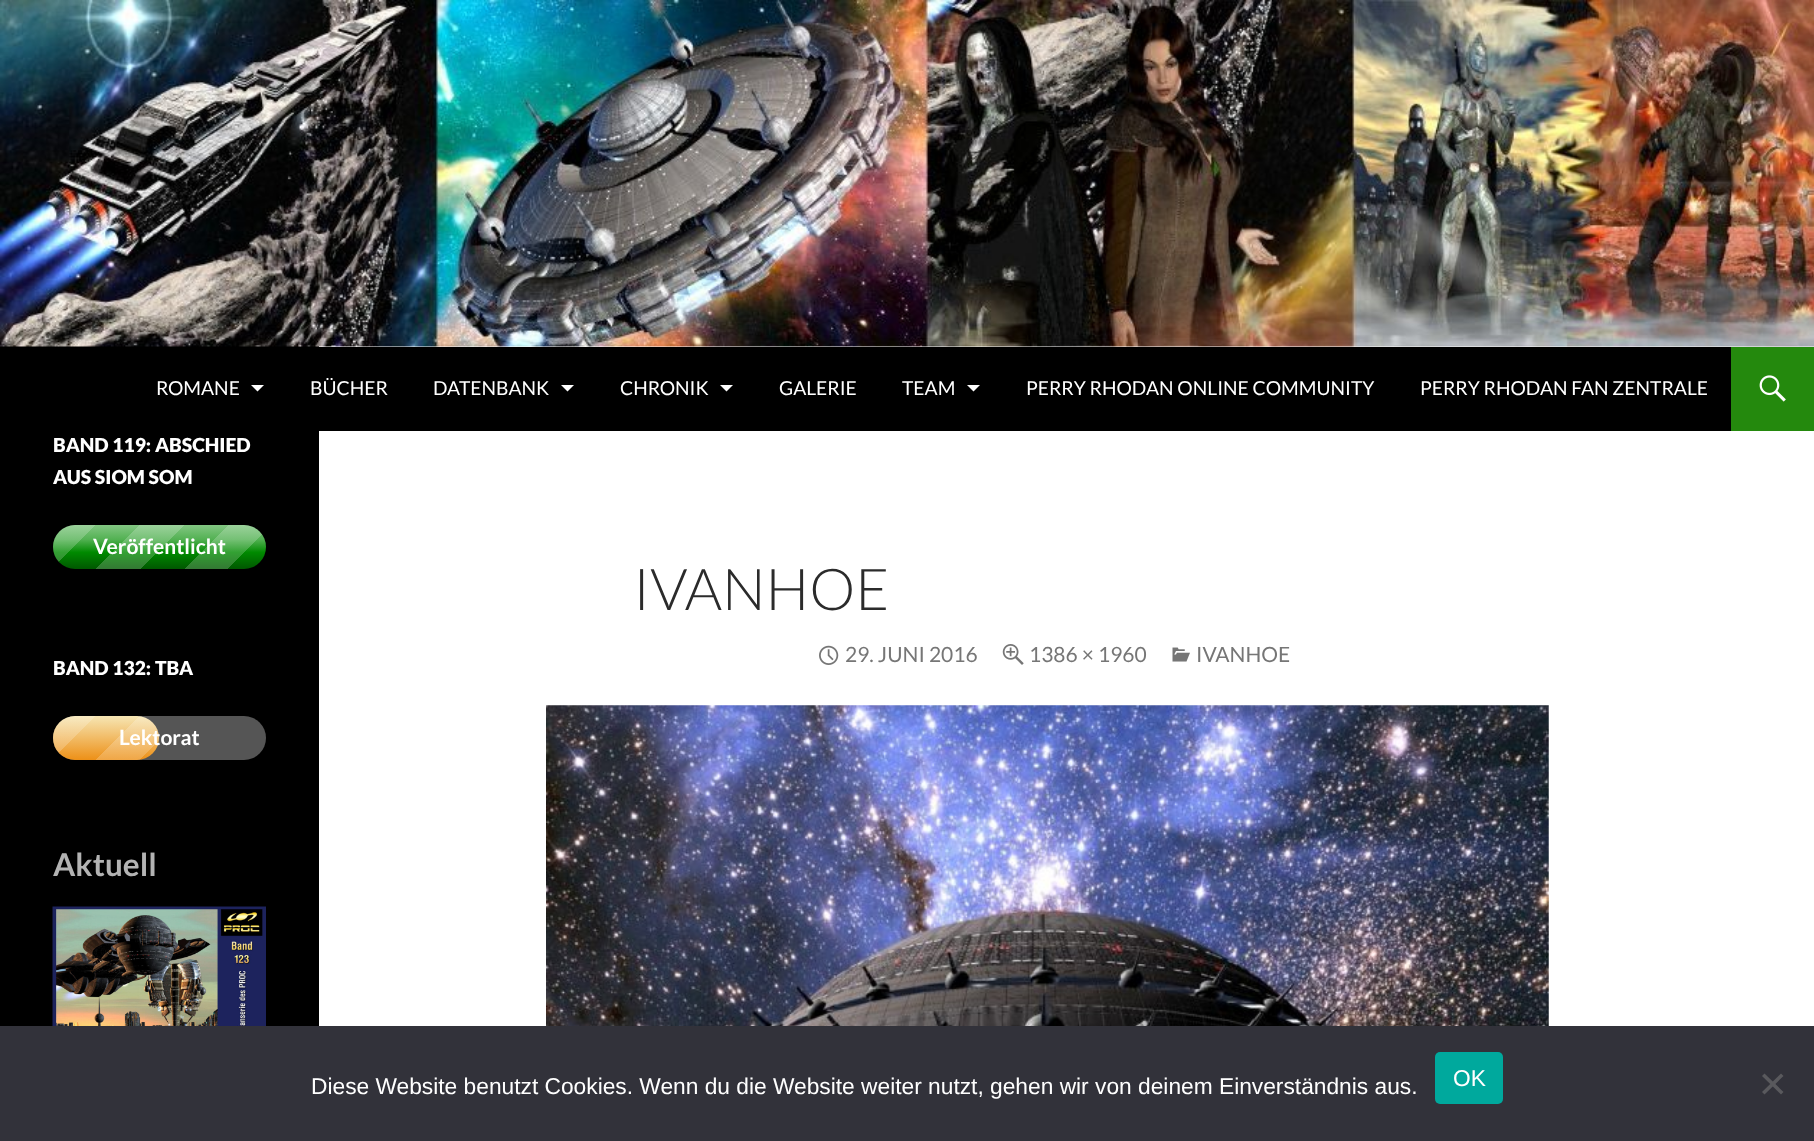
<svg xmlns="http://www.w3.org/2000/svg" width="1814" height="1141">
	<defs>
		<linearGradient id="g1" gradientUnits="userSpaceOnUse" x1="159" y1="525" x2="159" y2="569"><stop offset="0" stop-color="#83C783" /><stop offset="0.33" stop-color="#52B152" /><stop offset="0.62" stop-color="#008A00" /><stop offset="1" stop-color="#005700" /></linearGradient>
		<linearGradient id="g2" gradientUnits="userSpaceOnUse" x1="52" y1="525" x2="140" y2="613"><stop offset="0.25" stop-color="#FFFFFF" stop-opacity="0.2" /><stop offset="0.25" stop-color="#FFFFFF" stop-opacity="0" /><stop offset="0.5" stop-color="#FFFFFF" stop-opacity="0" /><stop offset="0.5" stop-color="#FFFFFF" stop-opacity="0.2" /><stop offset="0.75" stop-color="#FFFFFF" stop-opacity="0.2" /><stop offset="0.75" stop-color="#FFFFFF" stop-opacity="0" /><stop offset="1" stop-color="#000000" stop-opacity="0" /></linearGradient>
		<linearGradient id="g3" gradientUnits="userSpaceOnUse" x1="140" y1="525" x2="228" y2="613"><stop offset="0.25" stop-color="#FFFFFF" stop-opacity="0.2" /><stop offset="0.25" stop-color="#FFFFFF" stop-opacity="0" /><stop offset="0.5" stop-color="#FFFFFF" stop-opacity="0" /><stop offset="0.5" stop-color="#FFFFFF" stop-opacity="0.2" /><stop offset="0.75" stop-color="#FFFFFF" stop-opacity="0.2" /><stop offset="0.75" stop-color="#FFFFFF" stop-opacity="0" /><stop offset="1" stop-color="#000000" stop-opacity="0" /></linearGradient>
		<linearGradient id="g4" gradientUnits="userSpaceOnUse" x1="228" y1="525" x2="315" y2="613"><stop offset="0.25" stop-color="#FFFFFF" stop-opacity="0.2" /><stop offset="0.25" stop-color="#FFFFFF" stop-opacity="0" /><stop offset="0.5" stop-color="#FFFFFF" stop-opacity="0" /><stop offset="0.5" stop-color="#FFFFFF" stop-opacity="0.2" /><stop offset="0.75" stop-color="#FFFFFF" stop-opacity="0.2" /><stop offset="0.75" stop-color="#FFFFFF" stop-opacity="0" /><stop offset="1" stop-color="#000000" stop-opacity="0" /></linearGradient>
		<linearGradient id="g5" gradientUnits="userSpaceOnUse" x1="106" y1="716" x2="106" y2="760"><stop offset="0" stop-color="#F6E6B4" /><stop offset="1" stop-color="#ED9017" /></linearGradient>
		<clipPath id="clip1"><rect x="53" y="716" width="106" height="44" rx="22" /></clipPath>
		<linearGradient id="g6" gradientUnits="userSpaceOnUse" x1="52" y1="716" x2="140" y2="803"><stop offset="0.25" stop-color="#FFFFFF" stop-opacity="0.2" /><stop offset="0.25" stop-color="#FFFFFF" stop-opacity="0" /><stop offset="0.5" stop-color="#FFFFFF" stop-opacity="0" /><stop offset="0.5" stop-color="#FFFFFF" stop-opacity="0.2" /><stop offset="0.75" stop-color="#FFFFFF" stop-opacity="0.2" /><stop offset="0.75" stop-color="#FFFFFF" stop-opacity="0" /><stop offset="1" stop-color="#000000" stop-opacity="0" /></linearGradient>
		<linearGradient id="g7" gradientUnits="userSpaceOnUse" x1="140" y1="716" x2="228" y2="803"><stop offset="0.25" stop-color="#FFFFFF" stop-opacity="0.2" /><stop offset="0.25" stop-color="#FFFFFF" stop-opacity="0" /><stop offset="0.5" stop-color="#FFFFFF" stop-opacity="0" /><stop offset="0.5" stop-color="#FFFFFF" stop-opacity="0.2" /><stop offset="0.75" stop-color="#FFFFFF" stop-opacity="0.2" /><stop offset="0.75" stop-color="#FFFFFF" stop-opacity="0" /><stop offset="1" stop-color="#000000" stop-opacity="0" /></linearGradient>
	</defs>
	<rect width="100%" height="100%" fill="#FFFFFF" />
	<rect x="0" y="346" width="319" height="680" fill="#000000" />
	<image x="0" y="0" width="1814" height="347" href="assets/img1.png" />
	<rect x="319" y="347" width="1412" height="84" fill="#000000" />
	<text x="156" y="395" font-family="Lato" font-size="19.25" fill="#FFFFFF">ROMANE</text>
	<path d="M251 385H264L257.5 391.5Z" fill="#FFFFFF" />
	<g font-family="Lato" font-size="19.25" fill="#FFFFFF">
		<text x="310" y="395">BÜCHER</text>
		<text x="433" y="395">DATENBANK</text>
	</g>
	<path d="M561 385H574L567.5 391.5Z" fill="#FFFFFF" />
	<text x="620" y="395" font-family="Lato" font-size="19.25" fill="#FFFFFF">CHRONIK</text>
	<path d="M720 385H733L726.5 391.5Z" fill="#FFFFFF" />
	<g font-family="Lato" font-size="19.25" fill="#FFFFFF">
		<text x="779" y="395">GALERIE</text>
		<text x="902" y="395">TEAM</text>
	</g>
	<path d="M967 385H980L973.5 391.5Z" fill="#FFFFFF" />
	<g font-family="Lato" font-size="19.25" fill="#FFFFFF">
		<text x="1026" y="395">PERRY RHODAN ONLINE COMMUNITY</text>
		<text x="1420" y="395">PERRY RHODAN FAN ZENTRALE</text>
	</g>
	<rect x="1731" y="347" width="83" height="84" fill="#24890D" />
	<image x="1759" y="375" width="27" height="27" href="assets/img2.png" />
	<g font-family="Lato" font-size="19.25" font-weight="900" fill="#FFFFFF">
		<text x="53" y="452">BAND 119: ABSCHIED</text>
		<text x="53" y="484">AUS SIOM SOM</text>
	</g>
	<rect x="53" y="525" width="213" height="44" rx="22" fill="url(#g1)" />
	<path d="M75 525H140V569H75C63 569 53 559 53 547C53 535 63 525 75 525Z" fill="url(#g2)" />
	<rect x="140" y="525" width="88" height="44" fill="url(#g3)" />
	<path d="M228 525H244C256 525 266 535 266 547C266 559 256 569 244 569H228Z" fill="url(#g4)" />
	<text x="93" y="554" font-family="Lato" font-size="21" font-weight="700" fill="#FFFFFF">Veröffentlicht</text>
	<text x="53" y="675" font-family="Lato" font-size="19.25" font-weight="900" fill="#FFFFFF">BAND 132: TBA</text>
	<rect x="53" y="716" width="213" height="44" rx="22" fill="#555555" />
	<rect x="53" y="716" width="106" height="44" rx="22" fill="url(#g5)" />
	<g clip-path="url(#clip1)">
		<path d="M75 716H140V760H75C63 760 53 750 53 738C53 726 63 716 75 716Z" fill="url(#g6)" />
		<rect x="140" y="716" width="19" height="43" fill="url(#g7)" />
	</g>
	<text x="119" y="745" font-family="Lato" font-size="21" font-weight="700" fill="#FFFFFF">Lektorat</text>
	<text x="53" y="876" font-family="Lato" font-size="31.5" font-weight="700" fill="#B3B3B3">Aktuell</text>
	<image x="52" y="906" width="214" height="120" href="assets/img3.png" />
	<text x="633" y="610" font-family="Lato" font-size="57.75" font-weight="300" fill="#2B2B2B">IVANHOE</text>
	<image x="819" y="645" width="20" height="20" href="assets/img4.png" />
	<text x="845" y="662" font-family="Lato" font-size="21" fill="#767676">29. JUNI 2016</text>
	<image x="1002" y="644" width="22" height="21" href="assets/img5.png" />
	<text x="1029" y="662" font-family="Lato" font-size="21" fill="#767676">1386 × 1960</text>
	<image x="1172" y="647" width="18" height="15" href="assets/img6.png" />
	<text x="1196" y="662" font-family="Lato" font-size="21" fill="#767676">IVANHOE</text>
	<image x="546" y="705" width="1003" height="321" href="assets/img7.png" />
	<rect x="0" y="1026" width="1814" height="115" fill="#32323A" />
	<text x="311" y="1094" font-family="Liberation Sans" font-size="22.75" fill="#FFFFFF">Diese Website benutzt Cookies. Wenn du die Website weiter nutzt, gehen wir von deinem Einverständnis aus.</text>
	<rect x="1435" y="1052" width="68" height="52" rx="5" fill="#00A99D" />
	<text x="1453" y="1086" font-family="Liberation Sans" font-size="22.75" fill="#FFFFFF">OK</text>
	<path d="M1781 1073.5L1783.5 1076L1764.5 1094.5L1762 1092Z" fill="#59595D" />
	<path d="M1762 1076L1764.5 1073.5L1783.5 1092L1781 1094.5Z" fill="#59595D" />
</svg>
